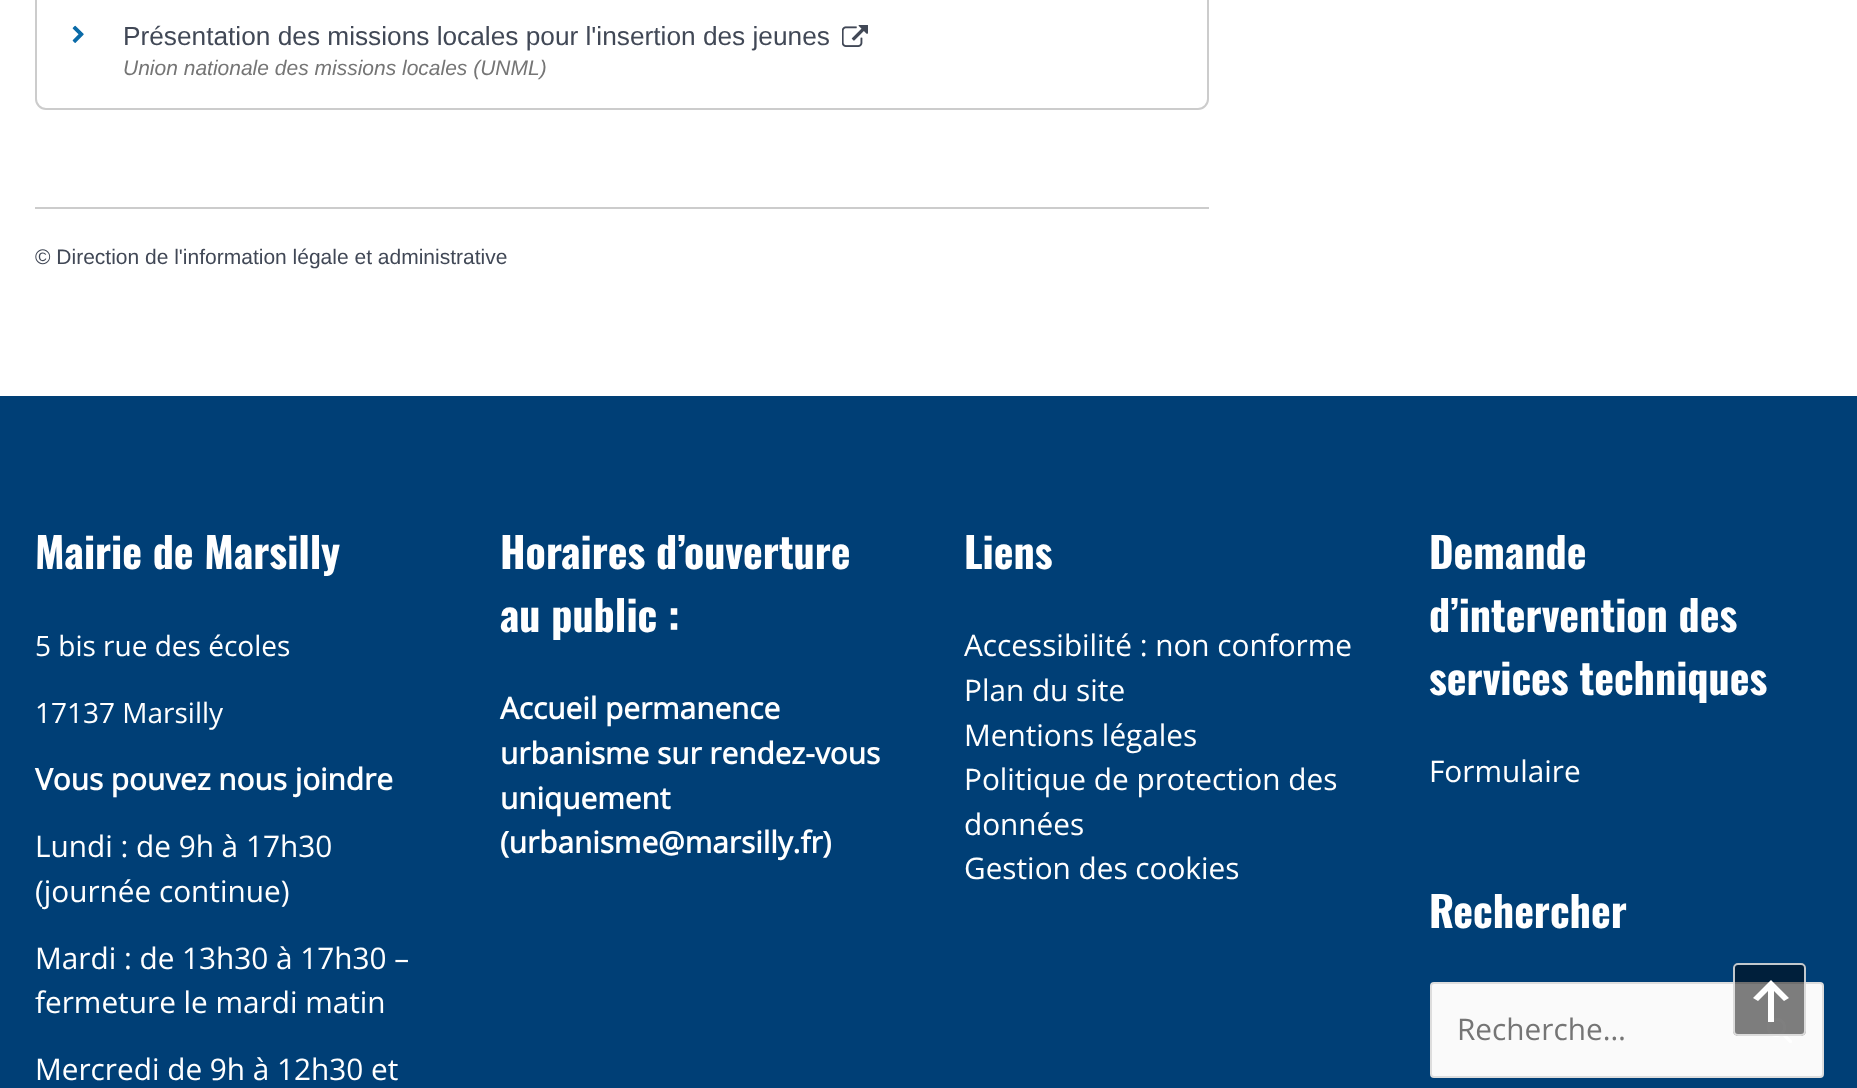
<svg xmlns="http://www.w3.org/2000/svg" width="1857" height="1088">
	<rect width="100%" height="100%" fill="#FFFFFF" />
	<rect x="36" y="-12" width="1172" height="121" rx="10" fill="none" stroke="#CCCCCC" stroke-width="2" />
	<image x="72" y="25" width="12" height="18" href="assets/img1.png" />
	<text x="123" y="45" font-family="Liberation Sans" font-size="26.25" fill="#414856">Présentation des missions locales pour l'insertion des jeunes</text>
	<image x="842" y="25" width="26" height="22" href="assets/img2.png" />
	<text x="123" y="75" font-family="Liberation Sans" font-size="21" font-style="italic" fill="#757575">Union nationale des missions locales (UNML)</text>
	<rect x="35" y="207" width="1174" height="2" fill="#CCCCCC" />
	<text x="35" y="264" font-family="Liberation Sans" font-size="21" fill="#414856">© Direction de l'information légale et administrative</text>
	<rect x="0" y="396" width="1857" height="692" fill="#003F76" />
	<rect x="1431" y="983" width="392" height="94" rx="3" fill="#FAFAFA" stroke="#DDDDDD" stroke-width="2" />
	<image x="1767" y="1018" width="25" height="25" href="assets/img3.png" />
	<rect x="1733" y="963" width="73" height="73" rx="5" fill="#000000" fill-opacity="0.5" />
	<rect x="1734" y="964" width="71" height="71" rx="4" fill="none" stroke="#F2F2F2" stroke-opacity="0.8" stroke-width="2" />
	<path d="M1774 1022H1768V991L1758 1001L1753 998L1771 980L1789 998L1784 1001L1774 991Z" fill="#FFFFFF" />
	<text x="35" y="569" font-family="Oswald" font-size="42" font-weight="700" fill="#FFFFFF">Mairie de Marsilly</text>
	<g font-family="Open Sans" font-size="28" fill="#FFFFFF">
		<text x="35" y="656">5 bis rue des écoles</text>
		<text x="35" y="723">17137 Marsilly</text>
	</g>
	<text x="35" y="790" font-family="Open Sans" font-size="29.75" font-weight="700" fill="#FFFFFF">Vous pouvez nous joindre</text>
	<g font-family="Open Sans" font-size="29.75" fill="#FFFFFF">
		<text x="35" y="857">Lundi : de 9h à 17h30</text>
		<text x="35" y="902">(journée continue)</text>
		<text x="35" y="969">Mardi : de 13h30 à 17h30 –</text>
		<text x="35" y="1013">fermeture le mardi matin</text>
		<text x="35" y="1080">Mercredi de 9h à 12h30 et</text>
	</g>
	<g font-family="Oswald" font-size="42" font-weight="700" fill="#FFFFFF">
		<text x="500" y="569">Horaires d’ouverture</text>
		<text x="500" y="632">au public :</text>
	</g>
	<g font-family="Open Sans" font-size="29.75" font-weight="700" fill="#FFFFFF">
		<text x="500" y="719">Accueil permanence</text>
		<text x="500" y="764">urbanisme sur rendez-vous</text>
		<text x="500" y="809">uniquement</text>
		<text x="500" y="853">(urbanisme@marsilly.fr)</text>
	</g>
	<text x="964" y="569" font-family="Oswald" font-size="42" font-weight="700" fill="#FFFFFF">Liens</text>
	<g font-family="Open Sans" font-size="29.75" fill="#FFFFFF">
		<text x="964" y="656">Accessibilité : non conforme</text>
		<text x="964" y="701">Plan du site</text>
		<text x="964" y="746">Mentions légales</text>
		<text x="964" y="790">Politique de protection des</text>
		<text x="964" y="835">données</text>
		<text x="964" y="879">Gestion des cookies</text>
	</g>
	<g font-family="Oswald" font-size="42" font-weight="700" fill="#FFFFFF">
		<text x="1429" y="569">Demande</text>
		<text x="1429" y="632">d’intervention des</text>
		<text x="1429" y="695">services techniques</text>
	</g>
	<text x="1429" y="782" font-family="Open Sans" font-size="29.75" fill="#FFFFFF">Formulaire</text>
	<text x="1429" y="928" font-family="Oswald" font-size="42" font-weight="700" fill="#FFFFFF">Rechercher</text>
	<text x="1457" y="1040" font-family="Open Sans" font-size="29.75" fill="#757575">Recherche…</text>
</svg>
